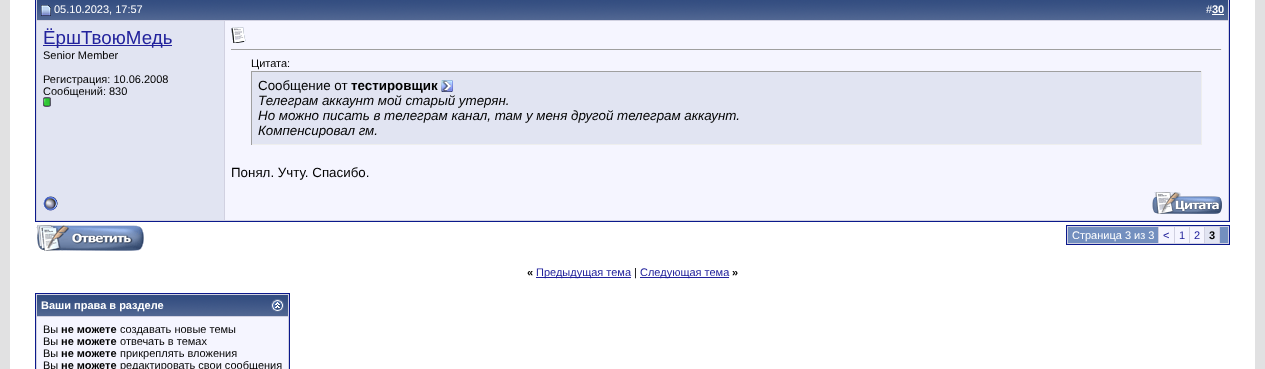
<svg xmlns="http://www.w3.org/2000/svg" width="1265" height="369">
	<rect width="100%" height="100%" fill="#E1E1E2" />
	<rect x="10" y="0" width="1245" height="369" fill="#FFFFFF" />
	<rect x="35.5" y="-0.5" width="1194" height="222" fill="none" stroke="#0B198C" />
	<image x="37" y="0" width="188" height="20" href="assets/img1.png" />
	<rect x="36" y="20" width="189" height="1" fill="#D1D1E1" />
	<rect x="36" y="0" width="1" height="186" fill="#D1D1E1" />
	<image x="41" y="5" width="10" height="11" href="assets/img2.png" />
	<text x="54" y="13" font-family="Liberation Sans" font-size="11" fill="#FFFFFF">05.10.2023, 17:57</text>
	<image x="225" y="0" width="1003" height="20" href="assets/img3.png" />
	<rect x="1228" y="0" width="1" height="221" fill="#D1D1E1" />
	<rect x="225" y="20" width="1004" height="1" fill="#D1D1E1" />
	<text x="1206" y="13" font-family="Liberation Sans" font-size="11" fill="#FFFFFF">#</text>
	<text x="1212" y="13" font-family="Liberation Sans" font-size="11" font-weight="700" fill="#FFFFFF">30</text>
	<rect x="1212" y="14" width="12" height="1" fill="#FFFFFF" />
	<rect x="37" y="21" width="187" height="199" fill="#E1E4F2" />
	<rect x="224" y="21" width="1" height="200" fill="#D1D1E1" />
	<rect x="43" y="45" width="129" height="1" fill="#22229C" />
	<text x="43" y="44" font-family="Liberation Sans" font-size="18.75" fill="#22229C">ЁршТвоюМедь</text>
	<g font-family="Liberation Sans" font-size="11" fill="#000000">
		<text x="43" y="59">Senior Member</text>
		<text x="43" y="83">Регистрация: 10.06.2008</text>
		<text x="43" y="95">Сообщений: 830</text>
	</g>
	<image x="43" y="97" width="8" height="10" href="assets/img4.png" />
	<rect x="225" y="21" width="1003" height="199" fill="#F5F5FF" />
	<image x="231" y="27" width="15" height="16" href="assets/img5.png" />
	<rect x="231" y="49" width="991" height="1" fill="#9F9F9F" />
	<rect x="1221" y="49" width="1" height="1" fill="#EEEEEE" />
	<text x="251" y="67" font-family="Liberation Sans" font-size="11" fill="#000000">Цитата:</text>
	<rect x="252" y="72" width="949" height="72" fill="#E1E4F2" />
	<rect x="251" y="71" width="951" height="1" fill="#9F9F9F" />
	<rect x="1201" y="71" width="1" height="74" fill="#EEEEEE" />
	<rect x="251" y="144" width="951" height="1" fill="#EEEEEE" />
	<rect x="251" y="71" width="1" height="74" fill="#9F9F9F" />
	<text x="258" y="90" font-family="Liberation Sans" font-size="13.35" fill="#000000">Сообщение от</text>
	<text x="351" y="90" font-family="Liberation Sans" font-size="13.35" font-weight="700" fill="#000000">тестировщик</text>
	<image x="441" y="80" width="12" height="12" href="assets/img6.png" />
	<g font-family="Liberation Sans" font-size="13.35" font-style="italic" fill="#000000">
		<text x="258" y="105">Телеграм аккаунт мой старый утерян.</text>
		<text x="258" y="120">Но можно писать в телеграм канал, там у меня другой телеграм аккаунт.</text>
		<text x="258" y="135">Компенсировал гм.</text>
	</g>
	<text x="231" y="177" font-family="Liberation Sans" font-size="13.35" fill="#000000">Понял. Учту. Спасибо.</text>
	<rect x="36" y="220" width="1193" height="1" fill="#D1D1E1" />
	<rect x="36" y="186" width="1" height="35" fill="#D1D1E1" />
	<image x="43" y="196" width="15" height="15" href="assets/img7.png" />
	<image x="1152" y="192" width="70" height="22" href="assets/img8.png" />
	<image x="36" y="225" width="108" height="26" href="assets/img9.png" />
	<rect x="1066.5" y="225.5" width="163" height="19" fill="#D1D1E1" stroke="#0B198C" />
	<rect x="1068" y="227" width="90" height="16" fill="#738FBF" />
	<text x="1072" y="239" font-family="Liberation Sans" font-size="11" fill="#FFFFFF">Страница 3 из 3</text>
	<rect x="1159" y="227" width="15" height="16" fill="#F5F5FF" />
	<text x="1163" y="239" font-family="Liberation Sans" font-size="11" fill="#22229C">&lt;</text>
	<rect x="1175" y="227" width="14" height="16" fill="#F5F5FF" />
	<text x="1179" y="239" font-family="Liberation Sans" font-size="11" fill="#22229C">1</text>
	<rect x="1190" y="227" width="14" height="16" fill="#F5F5FF" />
	<text x="1194" y="239" font-family="Liberation Sans" font-size="11" fill="#22229C">2</text>
	<rect x="1205" y="227" width="14" height="16" fill="#E1E4F2" />
	<text x="1209" y="239" font-family="Liberation Sans" font-size="11" font-weight="700" fill="#000000">3</text>
	<rect x="1220" y="227" width="8" height="16" fill="#738FBF" />
	<text x="527" y="276" font-family="Liberation Sans" font-size="11" font-weight="700" fill="#000000">«</text>
	<rect x="536" y="277" width="95" height="1" fill="#22229C" />
	<text x="536" y="276" font-family="Liberation Sans" font-size="11" fill="#22229C">Предыдущая тема</text>
	<text x="634" y="276" font-family="Liberation Sans" font-size="11" fill="#000000">|</text>
	<rect x="640" y="277" width="89" height="1" fill="#22229C" />
	<text x="640" y="276" font-family="Liberation Sans" font-size="11" fill="#22229C">Следующая тема</text>
	<text x="732" y="276" font-family="Liberation Sans" font-size="11" font-weight="700" fill="#000000">»</text>
	<rect x="35.5" y="293.5" width="254" height="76" fill="#D1D1E1" stroke="#0B198C" />
	<image x="37" y="295" width="251" height="21" href="assets/img10.png" />
	<text x="41" y="309" font-family="Liberation Sans" font-size="11" font-weight="700" fill="#FFFFFF">Ваши права в разделе</text>
	<image x="271" y="299" width="13" height="13" href="assets/img11.png" />
	<rect x="37" y="317" width="251" height="52" fill="#F5F5FF" />
	<text x="43" y="333" font-family="Liberation Sans" font-size="11" fill="#000000">Вы</text>
	<text x="61" y="333" font-family="Liberation Sans" font-size="11" font-weight="700" fill="#000000">не можете</text>
	<g font-family="Liberation Sans" font-size="11" fill="#000000">
		<text x="120" y="333">создавать новые темы</text>
		<text x="43" y="345">Вы</text>
	</g>
	<text x="61" y="345" font-family="Liberation Sans" font-size="11" font-weight="700" fill="#000000">не можете</text>
	<g font-family="Liberation Sans" font-size="11" fill="#000000">
		<text x="120" y="345">отвечать в темах</text>
		<text x="43" y="357">Вы</text>
	</g>
	<text x="61" y="357" font-family="Liberation Sans" font-size="11" font-weight="700" fill="#000000">не можете</text>
	<g font-family="Liberation Sans" font-size="11" fill="#000000">
		<text x="120" y="357">прикреплять вложения</text>
		<text x="43" y="369">Вы</text>
	</g>
	<text x="61" y="369" font-family="Liberation Sans" font-size="11" font-weight="700" fill="#000000">не можете</text>
	<text x="120" y="369" font-family="Liberation Sans" font-size="11" fill="#000000">редактировать свои сообщения</text>
</svg>
